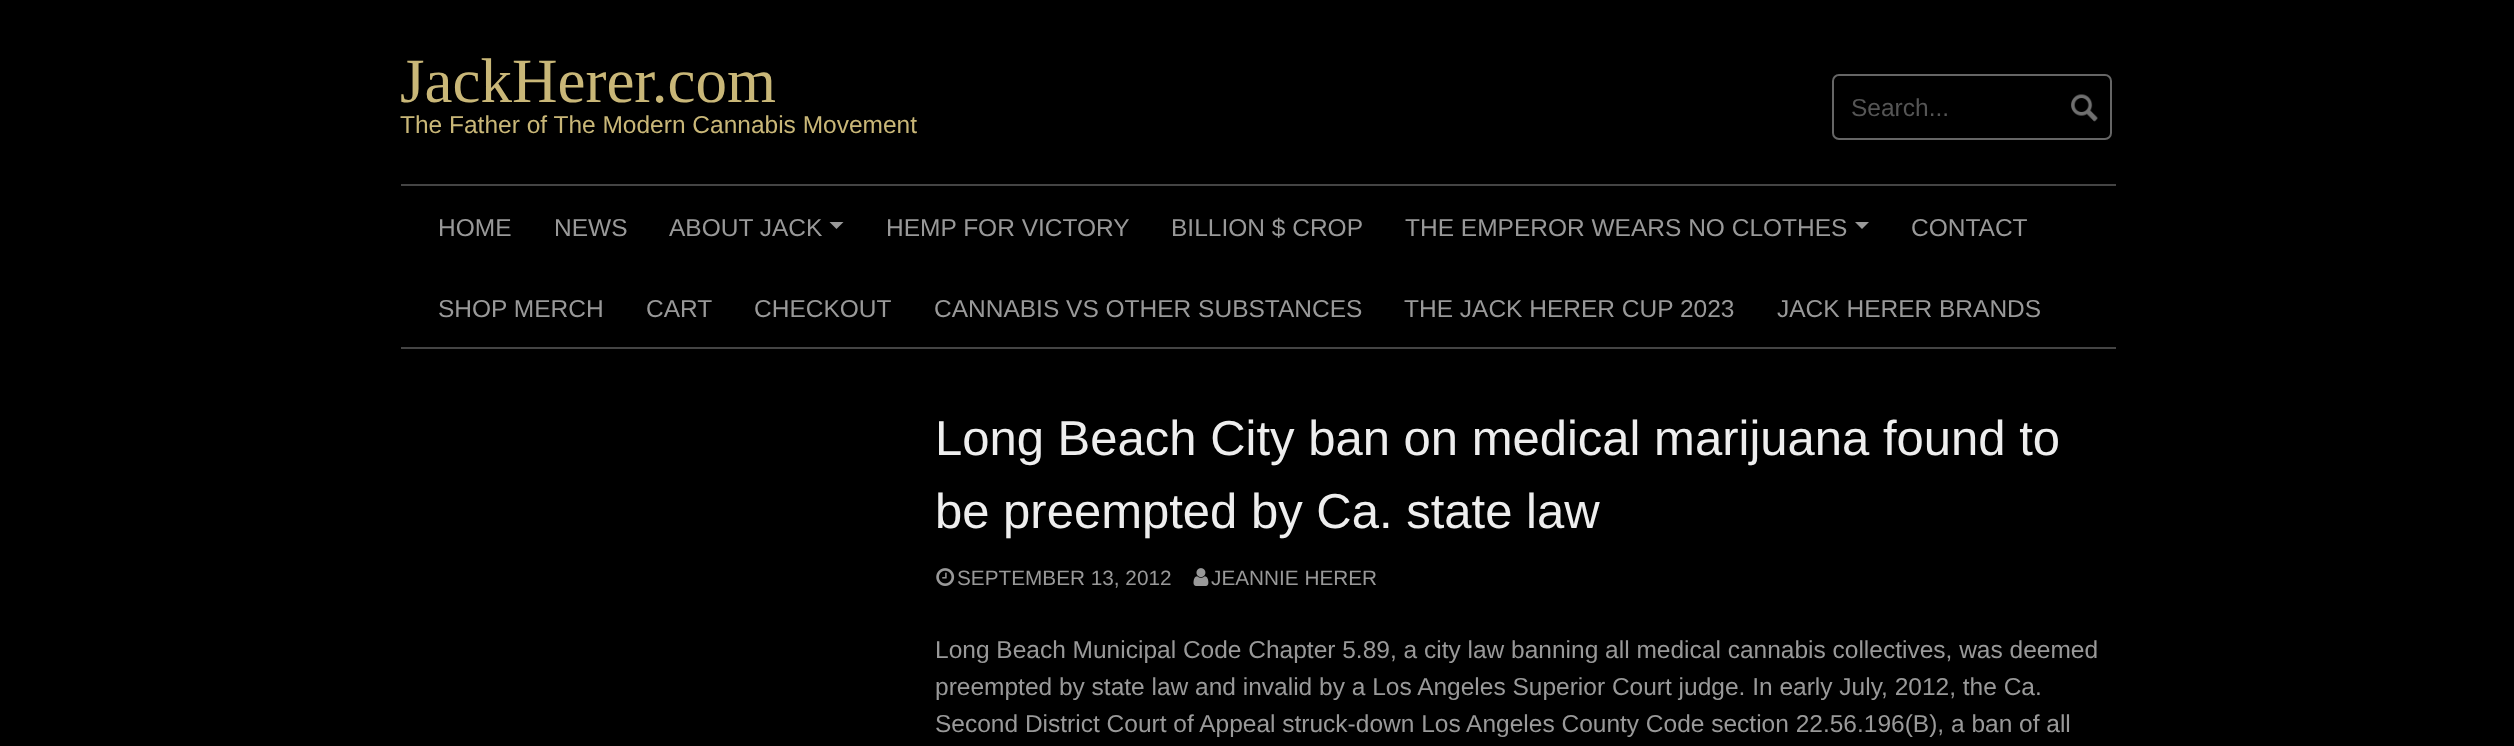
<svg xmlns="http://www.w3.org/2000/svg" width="2514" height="746">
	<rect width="100%" height="100%" fill="#000000" />
	<text x="400" y="102" font-family="Liberation Serif" font-size="63" fill="#C9B778">JackHerer.com</text>
	<text x="400" y="133" font-family="Liberation Sans" font-size="24.5" fill="#C9B778">The Father of The Modern Cannabis Movement</text>
	<rect x="1833" y="75" width="278" height="64" rx="6" fill="none" stroke="#666666" stroke-width="2" />
	<text x="1851" y="116" font-family="Liberation Sans" font-size="24.5" fill="#555555">Search...</text>
	<image x="2071" y="94" width="27" height="28" href="assets/img1.png" />
	<rect x="401" y="184" width="1715" height="2" fill="#444444" />
	<rect x="401" y="347" width="1715" height="2" fill="#444444" />
	<g font-family="Liberation Sans" font-size="24.5" fill="#999999">
		<text x="438" y="236">HOME</text>
		<text x="554" y="236">NEWS</text>
		<text x="669" y="236">ABOUT JACK</text>
	</g>
	<path d="M829.5 222H843.5L836.5 229Z" fill="#999999" />
	<g font-family="Liberation Sans" font-size="24.5" fill="#999999">
		<text x="886" y="236">HEMP FOR VICTORY</text>
		<text x="1171" y="236">BILLION $ CROP</text>
		<text x="1405" y="236">THE EMPEROR WEARS NO CLOTHES</text>
	</g>
	<path d="M1855 222H1869L1862 229Z" fill="#999999" />
	<g font-family="Liberation Sans" font-size="24.5" fill="#999999">
		<text x="1911" y="236">CONTACT</text>
		<text x="438" y="317">SHOP MERCH</text>
		<text x="646" y="317">CART</text>
		<text x="754" y="317">CHECKOUT</text>
		<text x="934" y="317">CANNABIS VS OTHER SUBSTANCES</text>
		<text x="1404" y="317">THE JACK HERER CUP 2023</text>
		<text x="1777" y="317">JACK HERER BRANDS</text>
	</g>
	<g font-family="Liberation Sans" font-size="49" fill="#EEEEEE">
		<text x="935" y="455">Long Beach City ban on medical marijuana found to</text>
		<text x="935" y="528">be preempted by Ca. state law</text>
	</g>
	<image x="936" y="568" width="19" height="18" href="assets/img2.png" />
	<text x="957" y="585" font-family="Liberation Sans" font-size="20.75" fill="#999999">SEPTEMBER 13, 2012</text>
	<image x="1193" y="568" width="16" height="18" href="assets/img3.png" />
	<text x="1211" y="585" font-family="Liberation Sans" font-size="20.75" fill="#999999">JEANNIE HERER</text>
	<g font-family="Liberation Sans" font-size="24.5" fill="#999999">
		<text x="935" y="658">Long Beach Municipal Code Chapter 5.89, a city law banning all medical cannabis collectives, was deemed</text>
		<text x="935" y="695">preempted by state law and invalid by a Los Angeles Superior Court judge. In early July, 2012, the Ca.</text>
		<text x="935" y="732">Second District Court of Appeal struck-down Los Angeles County Code section 22.56.196(B), a ban of all</text>
	</g>
</svg>
